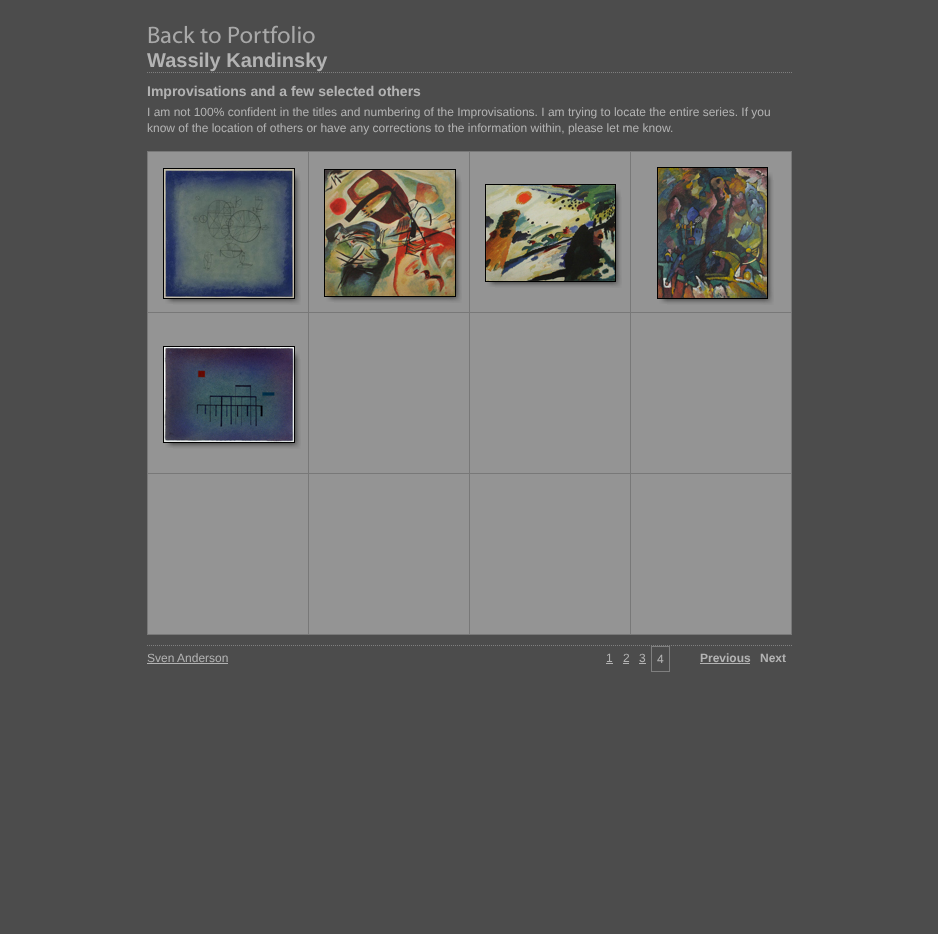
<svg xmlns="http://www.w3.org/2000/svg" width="938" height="934">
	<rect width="100%" height="100%" fill="#4C4C4C" />
	<image x="148" y="25" width="167" height="19" href="assets/img1.png" />
	<path d="M147 72.5H792" fill="none" stroke="#7F7F7F" stroke-dasharray="1 1" />
	<text x="147" y="67" font-family="Liberation Sans" font-size="20" font-weight="700" fill="#B3B3B3">Wassily Kandinsky</text>
	<text x="147" y="96" font-family="Liberation Sans" font-size="14" font-weight="700" fill="#B3B3B3">Improvisations and a few selected others</text>
	<g font-family="Liberation Sans" font-size="12" fill="#B3B3B3">
		<text x="147" y="116">I am not 100% confident in the titles and numbering of the Improvisations. I am trying to locate the entire series. If you</text>
		<text x="147" y="132">know of the location of others or have any corrections to the information within, please let me know.</text>
	</g>
	<path d="M147 645.5H792" fill="none" stroke="#7F7F7F" stroke-dasharray="1 1" />
	<rect x="148" y="152" width="160" height="160" fill="#949494" />
	<rect x="147" y="151" width="645" height="1" fill="#787878" />
	<rect x="147" y="151" width="1" height="161" fill="#787878" />
	<image x="173" y="181" width="128" height="124" href="assets/img2.png" />
	<rect x="163.5" y="168.5" width="131" height="130" fill="none" stroke="#000000" />
	<image x="164" y="169" width="130" height="129" href="assets/img3.png" />
	<image x="295" y="173" width="5" height="8" href="assets/img4.png" />
	<image x="165" y="299" width="8" height="5" href="assets/img5.png" />
	<rect x="309" y="152" width="160" height="160" fill="#949494" />
	<rect x="308" y="151" width="1" height="161" fill="#787878" />
	<image x="334" y="182" width="128" height="121" href="assets/img6.png" />
	<rect x="324.5" y="169.5" width="131" height="127" fill="none" stroke="#000000" />
	<image x="325" y="170" width="130" height="126" href="assets/img7.png" />
	<image x="456" y="174" width="5" height="8" href="assets/img4.png" />
	<image x="326" y="297" width="8" height="5" href="assets/img5.png" />
	<rect x="470" y="152" width="160" height="160" fill="#949494" />
	<rect x="469" y="151" width="1" height="161" fill="#787878" />
	<image x="495" y="197" width="127" height="91" href="assets/img8.png" />
	<rect x="485.5" y="184.5" width="130" height="97" fill="none" stroke="#000000" />
	<image x="486" y="185" width="129" height="96" href="assets/img9.png" />
	<image x="616" y="189" width="5" height="8" href="assets/img4.png" />
	<image x="487" y="282" width="8" height="5" href="assets/img5.png" />
	<rect x="631" y="152" width="160" height="160" fill="#949494" />
	<rect x="791" y="151" width="1" height="161" fill="#787878" />
	<rect x="630" y="151" width="1" height="161" fill="#787878" />
	<image x="667" y="180" width="107" height="125" href="assets/img10.png" />
	<rect x="657.5" y="167.5" width="110" height="131" fill="none" stroke="#000000" />
	<image x="658" y="168" width="109" height="130" href="assets/img11.png" />
	<image x="768" y="172" width="5" height="8" href="assets/img4.png" />
	<image x="659" y="299" width="8" height="5" href="assets/img5.png" />
	<rect x="148" y="313" width="160" height="160" fill="#949494" />
	<rect x="147" y="312" width="645" height="1" fill="#787878" />
	<rect x="147" y="312" width="1" height="161" fill="#787878" />
	<image x="173" y="359" width="128" height="90" href="assets/img12.png" />
	<rect x="163.5" y="346.5" width="131" height="96" fill="none" stroke="#000000" />
	<image x="164" y="347" width="130" height="95" href="assets/img13.png" />
	<image x="295" y="351" width="5" height="8" href="assets/img4.png" />
	<image x="165" y="443" width="8" height="5" href="assets/img5.png" />
	<rect x="309" y="313" width="160" height="160" fill="#949494" />
	<rect x="308" y="312" width="1" height="161" fill="#787878" />
	<rect x="470" y="313" width="160" height="160" fill="#949494" />
	<rect x="469" y="312" width="1" height="161" fill="#787878" />
	<rect x="631" y="313" width="160" height="160" fill="#949494" />
	<rect x="791" y="312" width="1" height="161" fill="#787878" />
	<rect x="630" y="312" width="1" height="161" fill="#787878" />
	<rect x="148" y="474" width="160" height="160" fill="#949494" />
	<rect x="147" y="473" width="483" height="1" fill="#787878" />
	<rect x="147" y="634" width="483" height="1" fill="#787878" />
	<rect x="147" y="473" width="1" height="162" fill="#787878" />
	<rect x="309" y="474" width="160" height="160" fill="#949494" />
	<rect x="308" y="473" width="1" height="162" fill="#787878" />
	<rect x="470" y="474" width="160" height="160" fill="#949494" />
	<rect x="469" y="473" width="1" height="162" fill="#787878" />
	<rect x="630.5" y="473.5" width="161" height="161" fill="#949494" stroke="#787878" />
	<text x="147" y="662" font-family="Liberation Sans" font-size="12" fill="#B3B3B3">Sven Anderson</text>
	<rect x="147" y="663" width="81" height="1" fill="#B3B3B3" />
	<text x="606" y="662" font-family="Liberation Sans" font-size="12" fill="#B3B3B3">1</text>
	<rect x="606" y="663" width="7" height="1" fill="#B3B3B3" />
	<text x="623" y="662" font-family="Liberation Sans" font-size="12" fill="#B3B3B3">2</text>
	<rect x="623" y="663" width="6" height="1" fill="#B3B3B3" />
	<text x="639" y="662" font-family="Liberation Sans" font-size="12" fill="#B3B3B3">3</text>
	<rect x="639" y="663" width="7" height="1" fill="#B3B3B3" />
	<rect x="651.5" y="646.5" width="18" height="25" fill="none" stroke="#7F7F7F" />
	<text x="657" y="663" font-family="Liberation Sans" font-size="12" fill="#B3B3B3">4</text>
	<text x="700" y="662" font-family="Liberation Sans" font-size="12" font-weight="700" fill="#B3B3B3">Previous</text>
	<rect x="700" y="663" width="50" height="1" fill="#B3B3B3" />
	<text x="760" y="662" font-family="Liberation Sans" font-size="12" font-weight="700" fill="#B3B3B3">Next</text>
</svg>
